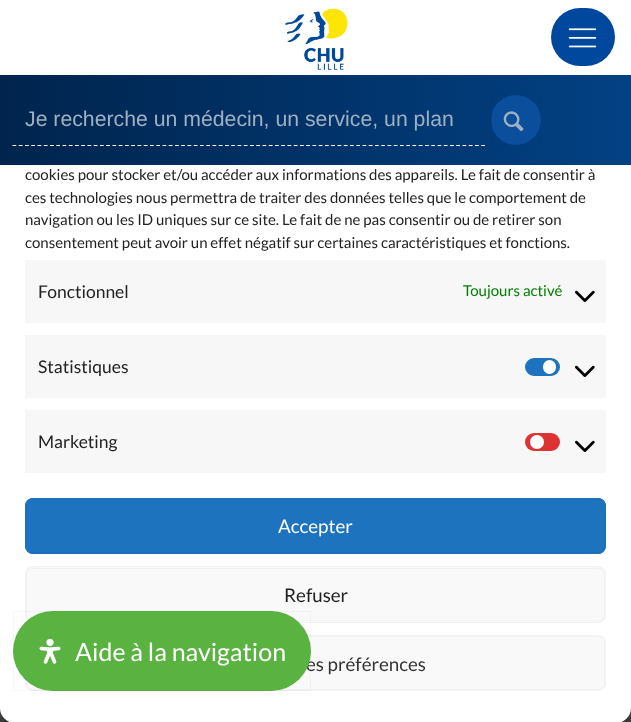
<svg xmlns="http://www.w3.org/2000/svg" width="631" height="722">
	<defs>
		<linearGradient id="g1" gradientUnits="userSpaceOnUse" x1="0" y1="120" x2="631" y2="120"><stop offset="0" stop-color="#00244D" /><stop offset="1" stop-color="#024184" /></linearGradient>
	</defs>
	<rect width="100%" height="100%" fill="#4D4D4D" />
	<rect x="0" y="716" width="631" height="6" fill="#474A4B" />
	<rect x="0" y="44" width="631" height="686" rx="15" fill="#000000" fill-opacity="0.23" filter="blur(4px)" />
	<rect x="0" y="49" width="631" height="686" rx="15" fill="#000000" fill-opacity="0.19" filter="blur(12.5px)" />
	<rect x="0" y="36" width="631" height="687" rx="15" fill="#FFFFFF" />
	<rect x="0" y="0" width="631" height="51" fill="#FFFFFF" />
	<image x="285" y="8" width="63" height="62" href="assets/img1.png" />
	<rect x="551" y="8" width="64" height="58" rx="29" fill="#00479E" />
	<image x="568" y="28" width="29" height="20" href="assets/img2.png" />
	<rect x="0" y="75" width="631" height="90" fill="url(#g1)" />
	<path d="M12.5 145.5H485" fill="none" stroke="#FFFFFF" stroke-width="1.2" stroke-dasharray="3.75 2.5" />
	<text x="25" y="126" font-family="Liberation Sans" font-size="21.25" fill="#9EB0C2">Je recherche un médecin, un service, un plan</text>
	<circle cx="516" cy="120" r="25" fill="#0A4E9C" />
	<rect x="491.5" y="95.5" width="49" height="49" fill="none" stroke="#000000" stroke-opacity="0.03" />
	<image x="503" y="111" width="21" height="21" href="assets/img3.png" />
	<g font-family="Lato" font-size="15" fill="#222222">
		<text x="25" y="180">cookies pour stocker et/ou accéder aux informations des appareils. Le fait de consentir à</text>
		<text x="25" y="203">ces technologies nous permettra de traiter des données telles que le comportement de</text>
		<text x="25" y="225">navigation ou les ID uniques sur ce site. Le fait de ne pas consentir ou de retirer son</text>
		<text x="25" y="248">consentement peut avoir un effet négatif sur certaines caractéristiques et fonctions.</text>
	</g>
	<rect x="25" y="260" width="581" height="63" fill="#F7F7F7" />
	<text x="38" y="298" font-family="Lato" font-size="17.5" fill="#222222">Fonctionnel</text>
	<text x="463" y="296" font-family="Lato" font-size="15" fill="#008000">Toujours activé</text>
	<image x="575" y="290" width="20" height="12" href="assets/img4.png" />
	<rect x="25" y="335" width="581" height="63" fill="#F7F7F7" />
	<text x="38" y="373" font-family="Lato" font-size="17.5" fill="#222222">Statistiques</text>
	<rect x="525" y="358" width="35" height="18" rx="9" fill="#1E73BE" />
	<rect x="543" y="360" width="13" height="14" rx="6.5" fill="#FFFFFF" />
	<image x="575" y="365" width="20" height="12" href="assets/img4.png" />
	<rect x="25" y="410" width="581" height="63" fill="#F7F7F7" />
	<text x="38" y="448" font-family="Lato" font-size="17.5" fill="#222222">Marketing</text>
	<rect x="525" y="433" width="35" height="18" rx="9" fill="#DD3333" />
	<circle cx="537" cy="442" r="7" fill="#FFFFFF" />
	<image x="575" y="440" width="20" height="12" href="assets/img4.png" />
	<rect x="25" y="498" width="581" height="56" rx="8" fill="#1E73BE" />
	<rect x="26.5" y="499.5" width="578" height="53" rx="5.5" fill="none" stroke="#1D70B8" />
	<rect x="25.5" y="498.5" width="580" height="55" rx="7.5" fill="none" stroke="#1E73BE" />
	<text x="278" y="533" font-family="Lato" font-size="18.75" fill="#FFFFFF">Accepter</text>
	<rect x="25" y="566" width="581" height="57" rx="8" fill="#F9F9F9" />
	<rect x="26.5" y="568.5" width="578" height="52" rx="5.5" fill="none" stroke="#F2F2F2" />
	<rect x="25.5" y="566.5" width="580" height="56" rx="7.5" fill="none" stroke="#F2F2F2" />
	<text x="284" y="602" font-family="Lato" font-size="18.75" fill="#222222">Refuser</text>
	<rect x="25" y="635" width="581" height="56" rx="8" fill="#F9F9F9" />
	<rect x="26.5" y="636.5" width="578" height="53" rx="5.5" fill="none" stroke="#F2F2F2" />
	<rect x="25.5" y="635.5" width="580" height="55" rx="7.5" fill="none" stroke="#F2F2F2" />
	<text x="306" y="671" font-family="Lato" font-size="18.75" fill="#333333">es préférences</text>
	<rect x="13" y="611" width="298" height="80" rx="40" fill="#5AB241" />
	<rect x="13.5" y="611.5" width="297" height="79" fill="none" stroke="#000000" stroke-opacity="0.03" />
	<image x="39" y="639" width="22" height="25" href="assets/img5.png" />
	<text x="75" y="661" font-family="Lato" font-size="25" fill="#FFFFFF">Aide à la navigation</text>
</svg>
